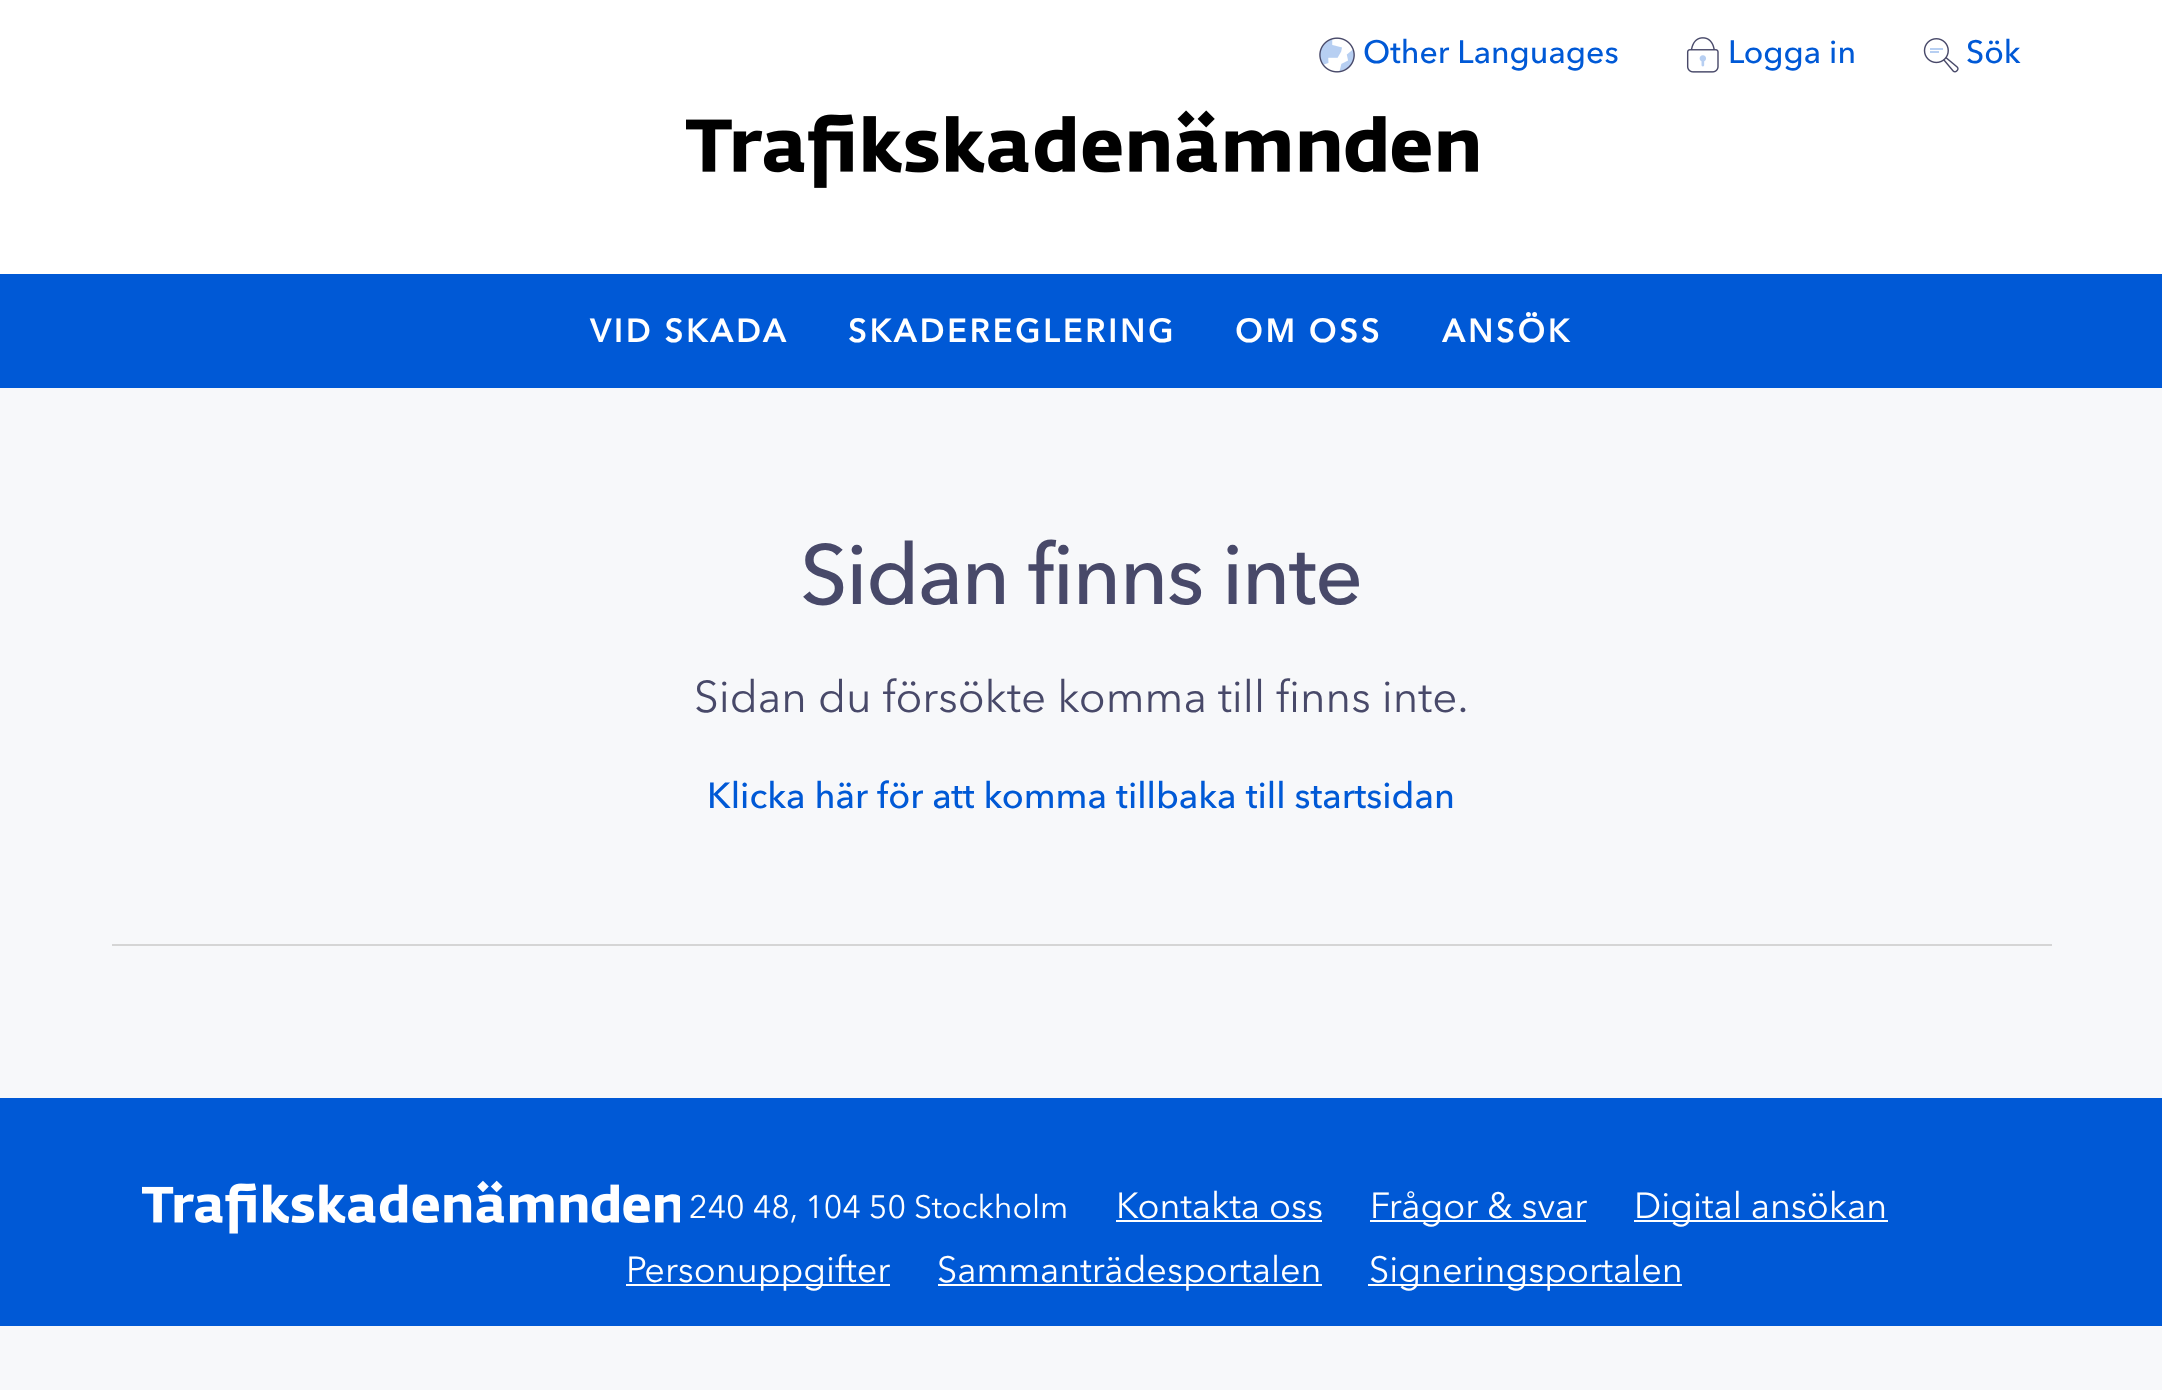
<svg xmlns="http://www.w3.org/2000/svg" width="2162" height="1390">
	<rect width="100%" height="100%" fill="#F7F8FA" />
	<rect x="0" y="0" width="2162" height="274" fill="#FFFFFF" />
	<image x="1319" y="37" width="36" height="36" href="assets/img1.png" />
	<text x="1363" y="63" font-family="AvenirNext" font-size="32" font-weight="500" fill="#0059D6">Other Languages</text>
	<image x="1686" y="37" width="33" height="36" href="assets/img2.png" />
	<text x="1728" y="63" font-family="AvenirNext" font-size="32" font-weight="500" fill="#0059D6">Logga in</text>
	<image x="1923" y="38" width="36" height="35" href="assets/img3.png" />
	<text x="1966" y="63" font-family="AvenirNext" font-size="32" font-weight="500" fill="#0059D6">Sök</text>
	<image x="686" y="110" width="792" height="78" href="assets/img4.png" />
	<rect x="0" y="274" width="2162" height="114" fill="#0059D6" />
	<g font-family="AvenirNext" font-size="32" font-weight="700" letter-spacing="3.25" fill="#FFFFFF">
		<text x="590" y="342">VID SKADA</text>
		<text x="848" y="342">SKADEREGLERING</text>
		<text x="1235" y="342">OM OSS</text>
		<text x="1442" y="342">ANSÖK</text>
	</g>
	<rect x="112" y="944" width="1940" height="2" fill="#D5D5D5" />
	<text x="800" y="604" font-family="AvenirNext" font-size="84" font-weight="500" letter-spacing="-1.7" fill="#484969">Sidan finns inte</text>
	<text x="694" y="712" font-family="AvenirNext" font-size="44" fill="#484969">Sidan du försökte komma till finns inte.</text>
	<text x="707" y="808" font-family="AvenirNext" font-size="36" font-weight="500" fill="#0059D6">Klicka här för att komma tillbaka till startsidan</text>
	<rect x="0" y="1098" width="2162" height="228" fill="#0059D6" />
	<image x="142" y="1180" width="538" height="54" href="assets/img5.png" />
	<text x="689" y="1218" font-family="AvenirNext" font-size="32" fill="#FFFFFF">240 48, 104 50 Stockholm</text>
	<text x="1116" y="1218" font-family="AvenirNext" font-size="36" fill="#FFFFFF">Kontakta oss</text>
	<rect x="1116" y="1220" width="206" height="2" fill="#FFFFFF" />
	<rect x="1370" y="1220" width="216" height="2" fill="#FFFFFF" />
	<text x="1370" y="1218" font-family="AvenirNext" font-size="36" fill="#FFFFFF">Frågor &amp; svar</text>
	<rect x="1634" y="1220" width="254" height="2" fill="#FFFFFF" />
	<text x="1634" y="1218" font-family="AvenirNext" font-size="36" fill="#FFFFFF">Digital ansökan</text>
	<rect x="626" y="1284" width="264" height="2" fill="#FFFFFF" />
	<text x="626" y="1282" font-family="AvenirNext" font-size="36" fill="#FFFFFF">Personuppgifter</text>
	<rect x="938" y="1284" width="384" height="2" fill="#FFFFFF" />
	<text x="937" y="1282" font-family="AvenirNext" font-size="36" fill="#FFFFFF">Sammanträdesportalen</text>
	<rect x="1368" y="1284" width="314" height="2" fill="#FFFFFF" />
	<text x="1369" y="1282" font-family="AvenirNext" font-size="36" fill="#FFFFFF">Signeringsportalen</text>
</svg>
